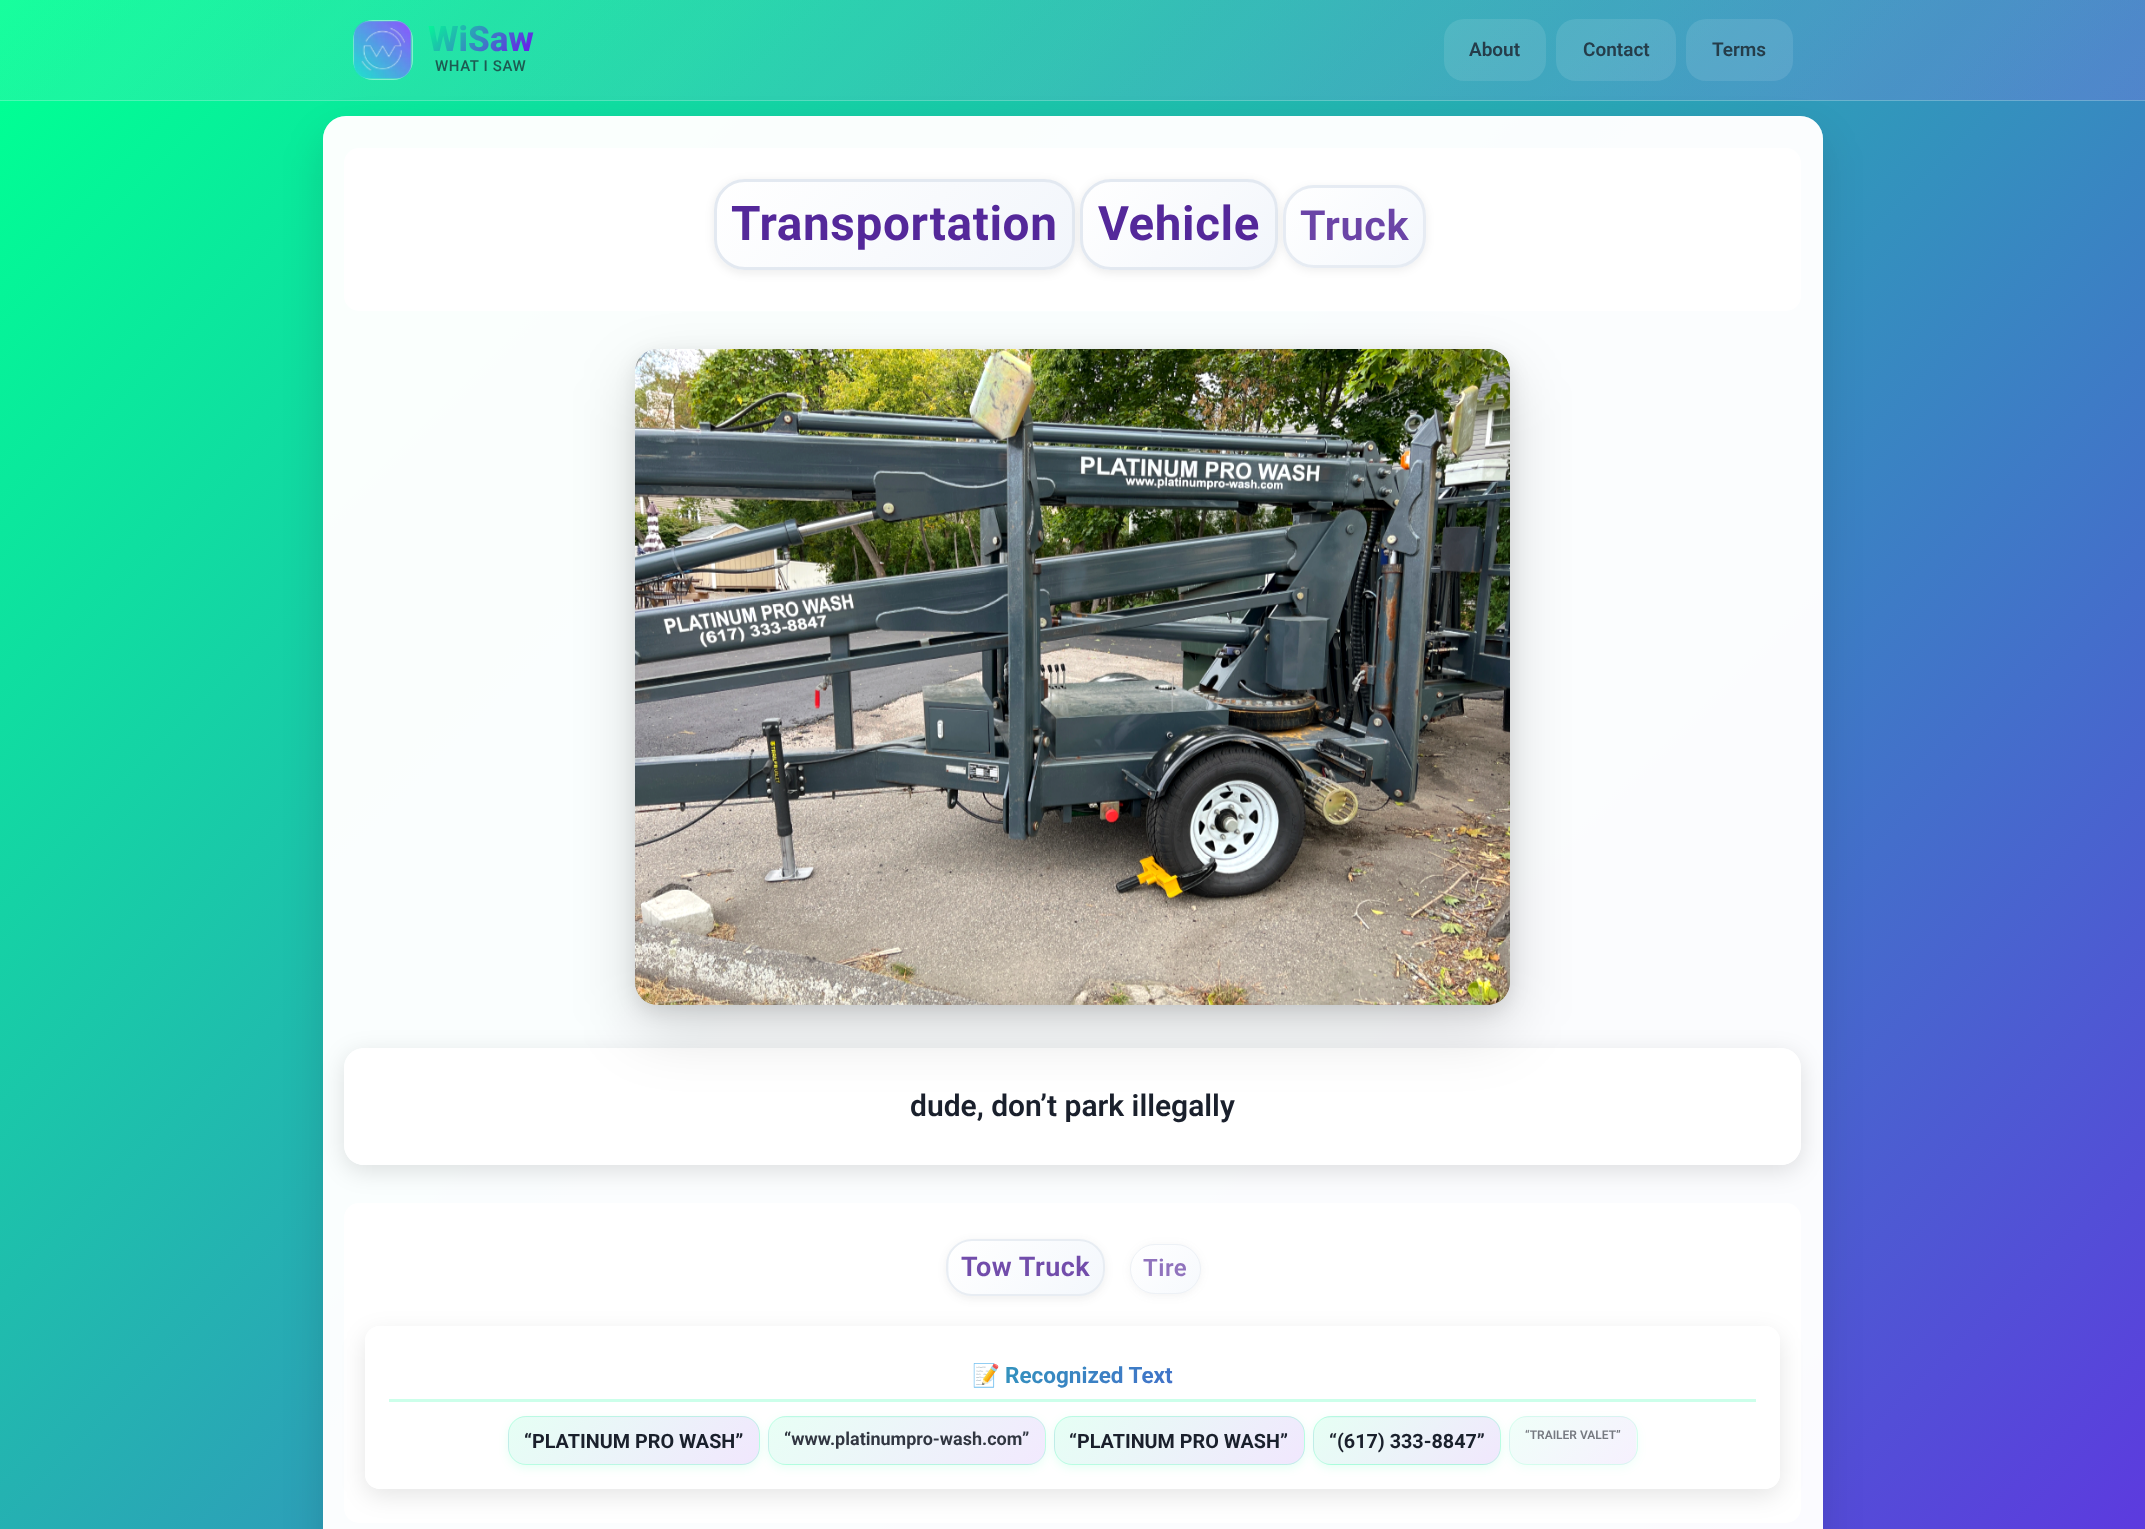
<svg xmlns="http://www.w3.org/2000/svg" width="2145" height="1529">
	<defs>
		<linearGradient id="g1" gradientUnits="userSpaceOnUse" x1="-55" y1="55" x2="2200" y2="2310"><stop offset="0" stop-color="#00FF94" /><stop offset="1" stop-color="#720CF0" /></linearGradient>
		<linearGradient id="g2" gradientUnits="userSpaceOnUse" x1="-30" y1="131" x2="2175" y2="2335"><stop offset="0" stop-color="#00FF94" /><stop offset="1" stop-color="#720CF0" /></linearGradient>
		<clipPath id="clip1"><path d="M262 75H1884V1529H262ZM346 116H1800C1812.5 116 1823 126.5 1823 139V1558C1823 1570.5 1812.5 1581 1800 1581H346C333.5 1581 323 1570.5 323 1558V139C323 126.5 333.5 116 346 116Z" clip-rule="evenodd" /></clipPath>
		<linearGradient id="g3" gradientUnits="userSpaceOnUse" x1="445" y1="4" x2="516" y2="74"><stop offset="0" stop-color="#00FF94" /><stop offset="1" stop-color="#720CF0" /></linearGradient>
		<linearGradient id="g4" gradientUnits="userSpaceOnUse" x1="511" y1="-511" x2="1634" y2="611"><stop offset="0" stop-color="#00FF94" stop-opacity="0.1" /><stop offset="1" stop-color="#720CF0" stop-opacity="0.1" /></linearGradient>
		<clipPath id="clip2"><path d="M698 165H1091V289H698ZM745 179H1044C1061 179 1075 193 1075 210V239C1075 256 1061 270 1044 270H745C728 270 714 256 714 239V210C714 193 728 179 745 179Z" clip-rule="evenodd" /></clipPath>
		<clipPath id="clip3"><rect x="714" y="179" width="361" height="91" rx="31" /></clipPath>
		<linearGradient id="g5" gradientUnits="userSpaceOnUse" x1="784" y1="114" x2="1005" y2="335"><stop offset="0" stop-color="#FFFFFF" stop-opacity="0.9" /><stop offset="1" stop-color="#F1F5FB" stop-opacity="0.95" /></linearGradient>
		<clipPath id="clip4"><path d="M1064 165H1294V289H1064ZM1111 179H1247C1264 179 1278 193 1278 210V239C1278 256 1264 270 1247 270H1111C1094 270 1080 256 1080 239V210C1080 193 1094 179 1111 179Z" clip-rule="evenodd" /></clipPath>
		<clipPath id="clip5"><rect x="1080" y="179" width="198" height="91" rx="31" /></clipPath>
		<linearGradient id="g6" gradientUnits="userSpaceOnUse" x1="1109" y1="68" x2="1248" y2="208"><stop offset="0" stop-color="#FFFFFF" stop-opacity="0.9" /><stop offset="1" stop-color="#F1F5FB" stop-opacity="0.95" /></linearGradient>
		<linearGradient id="g7" gradientUnits="userSpaceOnUse" x1="917" y1="155" x2="1056" y2="294"><stop offset="0" stop-color="#FFFFFF" stop-opacity="0.9" /><stop offset="1" stop-color="#F1F5FB" stop-opacity="0.95" /></linearGradient>
		<linearGradient id="g8" gradientUnits="userSpaceOnUse" x1="1109" y1="155" x2="1248" y2="294"><stop offset="0" stop-color="#FFFFFF" stop-opacity="0.9" /><stop offset="1" stop-color="#F1F5FB" stop-opacity="0.95" /></linearGradient>
		<linearGradient id="g9" gradientUnits="userSpaceOnUse" x1="1302" y1="155" x2="1441" y2="294"><stop offset="0" stop-color="#FFFFFF" stop-opacity="0.9" /><stop offset="1" stop-color="#F1F5FB" stop-opacity="0.95" /></linearGradient>
		<linearGradient id="g10" gradientUnits="userSpaceOnUse" x1="1109" y1="241" x2="1248" y2="380"><stop offset="0" stop-color="#FFFFFF" stop-opacity="0.9" /><stop offset="1" stop-color="#F1F5FB" stop-opacity="0.95" /></linearGradient>
		<clipPath id="clip6"><path d="M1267 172H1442V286H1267ZM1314 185H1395C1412 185 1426 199 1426 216V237C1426 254 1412 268 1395 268H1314C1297 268 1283 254 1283 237V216C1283 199 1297 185 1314 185Z" clip-rule="evenodd" /></clipPath>
		<clipPath id="clip7"><rect x="1283" y="185" width="143" height="83" rx="31" /></clipPath>
		<linearGradient id="g11" gradientUnits="userSpaceOnUse" x1="1300" y1="95" x2="1408" y2="203"><stop offset="0" stop-color="#FFFFFF" /><stop offset="1" stop-color="#F4F7FC" /></linearGradient>
		<linearGradient id="g12" gradientUnits="userSpaceOnUse" x1="1162" y1="172" x2="1270" y2="280"><stop offset="0" stop-color="#FFFFFF" /><stop offset="1" stop-color="#F3F6FB" /></linearGradient>
		<linearGradient id="g13" gradientUnits="userSpaceOnUse" x1="1300" y1="172" x2="1408" y2="280"><stop offset="0" stop-color="#FFFFFF" stop-opacity="0.9" /><stop offset="1" stop-color="#F3F7FC" stop-opacity="0.95" /></linearGradient>
		<linearGradient id="g14" gradientUnits="userSpaceOnUse" x1="1439" y1="172" x2="1547" y2="280"><stop offset="0" stop-color="#FFFFFF" /><stop offset="1" stop-color="#F4F7FC" /></linearGradient>
		<linearGradient id="g15" gradientUnits="userSpaceOnUse" x1="1300" y1="250" x2="1408" y2="358"><stop offset="0" stop-color="#FFFFFF" stop-opacity="0.9" /><stop offset="1" stop-color="#F3F7FC" stop-opacity="0.95" /></linearGradient>
		<clipPath id="clip8"><path d="M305 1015H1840V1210H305ZM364 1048H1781C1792 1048 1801 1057 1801 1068V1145C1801 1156 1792 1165 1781 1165H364C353 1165 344 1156 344 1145V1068C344 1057 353 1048 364 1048Z" clip-rule="evenodd" /></clipPath>
		<clipPath id="clip9"><path d="M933 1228H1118V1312H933ZM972 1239H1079C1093.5 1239 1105 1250.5 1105 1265V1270C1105 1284.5 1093.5 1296 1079 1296H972C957.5 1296 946 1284.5 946 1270V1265C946 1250.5 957.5 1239 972 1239Z" clip-rule="evenodd" /></clipPath>
		<clipPath id="clip10"><rect x="946" y="1239" width="159" height="57" rx="26" /></clipPath>
		<linearGradient id="g16" gradientUnits="userSpaceOnUse" x1="820" y1="1216" x2="923" y2="1319"><stop offset="0" stop-color="#FFFFFF" stop-opacity="0.9" /><stop offset="1" stop-color="#F3F7FC" stop-opacity="0.95" /></linearGradient>
		<linearGradient id="g17" gradientUnits="userSpaceOnUse" x1="974" y1="1216" x2="1077" y2="1319"><stop offset="0" stop-color="#FFFFFF" stop-opacity="0.9" /><stop offset="1" stop-color="#F3F7FC" stop-opacity="0.95" /></linearGradient>
		<clipPath id="clip11"><rect x="1130" y="1244" width="71" height="50" rx="25" /></clipPath>
		<linearGradient id="g18" gradientUnits="userSpaceOnUse" x1="1136" y1="1239" x2="1195" y2="1298"><stop offset="0" stop-color="#FFFFFF" /><stop offset="1" stop-color="#F6F9FD" /></linearGradient>
		<clipPath id="clip12"><path d="M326 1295H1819V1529H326ZM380 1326H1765C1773.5 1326 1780 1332.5 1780 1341V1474C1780 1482.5 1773.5 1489 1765 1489H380C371.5 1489 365 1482.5 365 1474V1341C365 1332.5 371.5 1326 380 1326Z" clip-rule="evenodd" /></clipPath>
		<linearGradient id="g19" gradientUnits="userSpaceOnUse" x1="722" y1="1024" x2="1423" y2="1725"><stop offset="0" stop-color="#00FF94" /><stop offset="1" stop-color="#720CF0" /></linearGradient>
		<clipPath id="clip13"><path d="M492 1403H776V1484H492ZM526 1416H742C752 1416 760 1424 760 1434V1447C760 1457 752 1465 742 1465H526C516 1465 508 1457 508 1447V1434C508 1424 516 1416 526 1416Z" clip-rule="evenodd" /></clipPath>
		<clipPath id="clip14"><rect x="508" y="1416" width="252" height="49" rx="18" /></clipPath>
		<linearGradient id="g20" gradientUnits="userSpaceOnUse" x1="560" y1="1320" x2="708" y2="1468"><stop offset="0" stop-color="#02FF95" stop-opacity="0.1" /><stop offset="1" stop-color="#730EF0" stop-opacity="0.1" /></linearGradient>
		<linearGradient id="g21" gradientUnits="userSpaceOnUse" x1="310" y1="1367" x2="458" y2="1515"><stop offset="0" stop-color="#E6FFF4" /><stop offset="1" stop-color="#F1E7FE" /></linearGradient>
		<linearGradient id="g22" gradientUnits="userSpaceOnUse" x1="560" y1="1367" x2="708" y2="1515"><stop offset="0" stop-color="#02FF95" stop-opacity="0.1" /><stop offset="1" stop-color="#730EF0" stop-opacity="0.1" /></linearGradient>
		<linearGradient id="g23" gradientUnits="userSpaceOnUse" x1="810" y1="1367" x2="958" y2="1515"><stop offset="0" stop-color="#02FF95" stop-opacity="0.1" /><stop offset="1" stop-color="#730EF0" stop-opacity="0.1" /></linearGradient>
		<linearGradient id="g24" gradientUnits="userSpaceOnUse" x1="560" y1="1413" x2="708" y2="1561"><stop offset="0" stop-color="#02FF95" stop-opacity="0.1" /><stop offset="1" stop-color="#730EF0" stop-opacity="0.1" /></linearGradient>
		<clipPath id="clip15"><rect x="768" y="1416" width="278" height="49" rx="18" /></clipPath>
		<linearGradient id="g25" gradientUnits="userSpaceOnUse" x1="826" y1="1314" x2="988" y2="1475"><stop offset="0" stop-color="#19FF9F" stop-opacity="0.1" /><stop offset="1" stop-color="#8024F1" stop-opacity="0.1" /></linearGradient>
		<linearGradient id="g26" gradientUnits="userSpaceOnUse" x1="550" y1="1360" x2="711" y2="1521"><stop offset="0" stop-color="#E7FFF5" /><stop offset="1" stop-color="#F1E9FD" /></linearGradient>
		<linearGradient id="g27" gradientUnits="userSpaceOnUse" x1="826" y1="1360" x2="988" y2="1521"><stop offset="0" stop-color="#E8FFF5" /><stop offset="1" stop-color="#F2E9FE" /></linearGradient>
		<linearGradient id="g28" gradientUnits="userSpaceOnUse" x1="1103" y1="1360" x2="1264" y2="1521"><stop offset="0" stop-color="#E8FFF5" /><stop offset="1" stop-color="#F2E9FE" /></linearGradient>
		<linearGradient id="g29" gradientUnits="userSpaceOnUse" x1="826" y1="1406" x2="988" y2="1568"><stop offset="0" stop-color="#19FF9F" stop-opacity="0.1" /><stop offset="1" stop-color="#8024F1" stop-opacity="0.1" /></linearGradient>
		<clipPath id="clip16"><path d="M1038 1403H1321V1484H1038ZM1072 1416H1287C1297 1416 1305 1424 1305 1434V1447C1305 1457 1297 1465 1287 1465H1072C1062 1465 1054 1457 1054 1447V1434C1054 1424 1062 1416 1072 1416Z" clip-rule="evenodd" /></clipPath>
		<clipPath id="clip17"><rect x="1054" y="1416" width="251" height="49" rx="18" /></clipPath>
		<linearGradient id="g30" gradientUnits="userSpaceOnUse" x1="1106" y1="1321" x2="1253" y2="1468"><stop offset="0" stop-color="#02FF95" stop-opacity="0.1" /><stop offset="1" stop-color="#730EF0" stop-opacity="0.1" /></linearGradient>
		<linearGradient id="g31" gradientUnits="userSpaceOnUse" x1="857" y1="1367" x2="1004" y2="1514"><stop offset="0" stop-color="#E5FFF4" /><stop offset="1" stop-color="#F0E7FD" /></linearGradient>
		<linearGradient id="g32" gradientUnits="userSpaceOnUse" x1="1106" y1="1367" x2="1253" y2="1514"><stop offset="0" stop-color="#02FF95" stop-opacity="0.1" /><stop offset="1" stop-color="#730EF0" stop-opacity="0.1" /></linearGradient>
		<linearGradient id="g33" gradientUnits="userSpaceOnUse" x1="1354" y1="1367" x2="1502" y2="1514"><stop offset="0" stop-color="#02FF95" stop-opacity="0.1" /><stop offset="1" stop-color="#730EF0" stop-opacity="0.1" /></linearGradient>
		<linearGradient id="g34" gradientUnits="userSpaceOnUse" x1="1106" y1="1413" x2="1253" y2="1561"><stop offset="0" stop-color="#02FF95" stop-opacity="0.1" /><stop offset="1" stop-color="#730EF0" stop-opacity="0.1" /></linearGradient>
		<clipPath id="clip18"><rect x="1313" y="1416" width="188" height="49" rx="18" /></clipPath>
		<linearGradient id="g35" gradientUnits="userSpaceOnUse" x1="1349" y1="1336" x2="1465" y2="1453"><stop offset="0" stop-color="#03FF95" stop-opacity="0.1" /><stop offset="1" stop-color="#730EF0" stop-opacity="0.1" /></linearGradient>
		<linearGradient id="g36" gradientUnits="userSpaceOnUse" x1="1163" y1="1383" x2="1279" y2="1499"><stop offset="0" stop-color="#E5FFF4" /><stop offset="1" stop-color="#F0E7FD" /></linearGradient>
		<linearGradient id="g37" gradientUnits="userSpaceOnUse" x1="1349" y1="1383" x2="1465" y2="1499"><stop offset="0" stop-color="#E6FFF4" /><stop offset="1" stop-color="#F1E7FD" /></linearGradient>
		<linearGradient id="g38" gradientUnits="userSpaceOnUse" x1="1535" y1="1383" x2="1651" y2="1499"><stop offset="0" stop-color="#E6FFF4" /><stop offset="1" stop-color="#F1E7FD" /></linearGradient>
		<linearGradient id="g39" gradientUnits="userSpaceOnUse" x1="1349" y1="1429" x2="1465" y2="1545"><stop offset="0" stop-color="#03FF95" stop-opacity="0.1" /><stop offset="1" stop-color="#730EF0" stop-opacity="0.1" /></linearGradient>
		<clipPath id="clip19"><path d="M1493 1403H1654V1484H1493ZM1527 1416H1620C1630 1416 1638 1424 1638 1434V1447C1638 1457 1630 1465 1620 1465H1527C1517 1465 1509 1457 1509 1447V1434C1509 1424 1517 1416 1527 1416Z" clip-rule="evenodd" /></clipPath>
		<clipPath id="clip20"><rect x="1509" y="1416" width="129" height="49" rx="18" /></clipPath>
		<linearGradient id="g40" gradientUnits="userSpaceOnUse" x1="1530" y1="1351" x2="1616" y2="1438"><stop offset="0" stop-color="#EFFFF8" /><stop offset="1" stop-color="#F6F0FE" /></linearGradient>
		<linearGradient id="g41" gradientUnits="userSpaceOnUse" x1="1404" y1="1398" x2="1490" y2="1484"><stop offset="0" stop-color="#EFFFF8" /><stop offset="1" stop-color="#F6F0FE" /></linearGradient>
		<linearGradient id="g42" gradientUnits="userSpaceOnUse" x1="1530" y1="1398" x2="1616" y2="1484"><stop offset="0" stop-color="#66FFBF" stop-opacity="0.1" /><stop offset="1" stop-color="#AA6DF6" stop-opacity="0.1" /></linearGradient>
		<linearGradient id="g43" gradientUnits="userSpaceOnUse" x1="1656" y1="1398" x2="1743" y2="1484"><stop offset="0" stop-color="#66FFBF" stop-opacity="0.1" /><stop offset="1" stop-color="#AA6DF6" stop-opacity="0.1" /></linearGradient>
		<linearGradient id="g44" gradientUnits="userSpaceOnUse" x1="1530" y1="1444" x2="1616" y2="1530"><stop offset="0" stop-color="#66FFBF" stop-opacity="0.1" /><stop offset="1" stop-color="#AA6DF6" stop-opacity="0.1" /></linearGradient>
	</defs>
	<rect width="100%" height="100%" fill="#FFFFFF" />
	<rect x="0" y="0" width="2145" height="101" fill="url(#g1)" />
	<rect x="0" y="101" width="2145" height="1428" fill="url(#g2)" />
	<g clip-path="url(#clip1)">
		<rect x="323" y="136" width="1500" height="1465" rx="23" fill="#000000" fill-opacity="0.12" filter="blur(20px)" />
	</g>
	<rect x="0" y="0" width="2145" height="101" fill="#FFFFFF" fill-opacity="0.1" />
	<rect x="0" y="100" width="2145" height="1" fill="#FFFFFF" fill-opacity="0.2" />
	<rect x="0" y="0" width="2145" height="100" fill="url(#g4)" />
	<rect x="353" y="20" width="60" height="60" rx="20" fill="#FFFFFF" fill-opacity="0.2" />
	<rect x="353.5" y="20.5" width="59" height="59" rx="19.5" fill="none" stroke="#FFFFFF" stroke-opacity="0.3" />
	<image x="353" y="21" width="59" height="58" href="assets/img1.png" />
	<text x="428" y="51" font-family="Roboto" font-size="35" font-weight="800" fill="url(#g3)">WiSaw</text>
	<text x="435" y="71" font-family="Roboto" font-size="15" font-weight="500" letter-spacing="0.6" fill="#1D5A51">WHAT I SAW</text>
	<rect x="1444" y="19" width="102" height="62" rx="20" fill="#FFFFFF" fill-opacity="0.1" />
	<text x="1469" y="56" font-family="Roboto" font-size="19" font-weight="600" fill="#253D4A">About</text>
	<rect x="1556" y="19" width="120" height="62" rx="20" fill="#FFFFFF" fill-opacity="0.1" />
	<text x="1583" y="56" font-family="Roboto" font-size="19" font-weight="600" fill="#253D4A">Contact</text>
	<rect x="1686" y="19" width="107" height="62" rx="20" fill="#FFFFFF" fill-opacity="0.1" />
	<text x="1712" y="56" font-family="Roboto" font-size="19" font-weight="600" fill="#253D4A">Terms</text>
	<rect x="323" y="116" width="1500" height="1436" rx="23" fill="#FFFFFF" fill-opacity="0.98" />
	<rect x="323.5" y="116.5" width="1499" height="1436" rx="22.5" fill="none" stroke="#FFFFFF" stroke-opacity="0.4" />
	<rect x="344" y="148" width="1457" height="163" rx="15" fill="#FFFFFF" />
	<g clip-path="url(#clip2)">
		<rect x="714" y="181" width="361" height="92" rx="31" fill="#0C0C0C" fill-opacity="0.08" filter="blur(5px)" />
	</g>
	<g clip-path="url(#clip3)">
		<rect x="716" y="181" width="357" height="87" fill="url(#g5)" />
	</g>
	<rect x="715.5" y="180.5" width="358" height="88" rx="29.5" fill="none" stroke="#E3E9F1" stroke-width="3" />
	<text x="731" y="240" font-family="Roboto" font-size="47.75" font-weight="700" letter-spacing="0.6" fill="#54289A">Transportation</text>
	<g clip-path="url(#clip4)">
		<rect x="1080" y="181" width="198" height="92" rx="31" fill="#000000" fill-opacity="0.08" filter="blur(5px)" />
	</g>
	<g clip-path="url(#clip5)">
		<rect x="1100" y="179" width="158" height="2" fill="url(#g6)" />
		<rect x="1080" y="197" width="3" height="55" fill="url(#g7)" />
		<rect x="1083" y="181" width="192" height="87" fill="url(#g8)" />
		<rect x="1275" y="197" width="3" height="55" fill="url(#g9)" />
		<rect x="1100" y="268" width="158" height="2" fill="url(#g10)" />
	</g>
	<rect x="1081.5" y="180.5" width="195" height="88" rx="29.5" fill="none" stroke="#E2E8F0" stroke-opacity="0.95" stroke-width="3" />
	<text x="1098" y="240" font-family="Roboto" font-size="47.5" font-weight="700" letter-spacing="0.6" fill="#54289A">Vehicle</text>
	<g clip-path="url(#clip6)">
		<rect x="1283" y="188" width="143" height="82" rx="31" fill="#000000" fill-opacity="0.07" filter="blur(5px)" />
	</g>
	<g clip-path="url(#clip7)">
		<rect x="1301" y="185" width="107" height="3" fill="url(#g11)" />
		<rect x="1283" y="205" width="2" height="43" fill="url(#g12)" />
		<rect x="1285" y="188" width="139" height="77" fill="url(#g13)" />
		<rect x="1424" y="205" width="2" height="43" fill="url(#g14)" />
		<rect x="1301" y="265" width="107" height="3" fill="url(#g15)" />
	</g>
	<rect x="1284.5" y="186.5" width="140" height="80" rx="29.5" fill="none" stroke="#E2E8F0" stroke-opacity="0.83" stroke-width="3" />
	<text x="1300" y="240" font-family="'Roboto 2'" font-size="41.5" font-weight="600" letter-spacing="0.6" fill="#6B44A7">Truck</text>
	<rect x="635" y="355" width="875" height="656" rx="23" fill="#000000" fill-opacity="0.1" filter="blur(9.5px)" />
	<g clip-path="url(#clip8)">
		<rect x="344" y="1054" width="1457" height="117" rx="20" fill="#000000" fill-opacity="0.12" filter="blur(12.5px)" />
	</g>
	<rect x="344" y="1048" width="1457" height="117" rx="20" fill="#FFFFFF" fill-opacity="0.98" />
	<rect x="635" y="374" width="875" height="656" rx="23" fill="#000000" fill-opacity="0.15" filter="blur(31px)" />
	<image x="635" y="349" width="875" height="656" href="assets/img2.png" />
	<image x="635" y="349" width="875" height="656" href="assets/img3.png" />
	<text x="910" y="1116" font-family="Roboto" font-size="30" font-weight="600" fill="#1A202C">dude, don’t park illegally</text>
	<rect x="344" y="1203" width="1457" height="320" rx="15" fill="#FFFFFF" />
	<g clip-path="url(#clip9)">
		<rect x="946" y="1241" width="159" height="58" rx="26" fill="#363636" fill-opacity="0.08" filter="blur(4px)" />
	</g>
	<g clip-path="url(#clip10)">
		<rect x="946" y="1253" width="3" height="29" fill="url(#g16)" />
		<rect x="949" y="1241" width="154" height="53" fill="url(#g17)" />
	</g>
	<rect x="947" y="1240" width="157" height="55" rx="25" fill="none" stroke="#E8EDF3" stroke-width="2" />
	<text x="961" y="1276" font-family="'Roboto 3'" font-size="27" font-weight="600" letter-spacing="0.5" fill="#724DAB">Tow Truck</text>
	<rect x="1130" y="1245" width="71" height="51" rx="25.5" fill="#616161" fill-opacity="0.08" filter="blur(4px)" />
	<g clip-path="url(#clip11)">
		<rect x="1131" y="1245" width="69" height="48" fill="url(#g18)" />
	</g>
	<rect x="1130.5" y="1244.5" width="70" height="49" rx="24.5" fill="none" stroke="#EDF1F6" />
	<text x="1143" y="1276" font-family="'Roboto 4'" font-size="24" font-weight="600" letter-spacing="0.5" fill="#9073BD">Tire</text>
	<g clip-path="url(#clip12)">
		<rect x="365" y="1334" width="1415" height="162" rx="15" fill="#000000" fill-opacity="0.1" filter="blur(12.5px)" />
	</g>
	<rect x="365" y="1326" width="1415" height="163" rx="15" fill="#FFFFFF" fill-opacity="0.95" />
	<rect x="389" y="1399" width="1367" height="3" fill="#CCFFEA" />
	<text x="972" y="1383" font-family="Noto Color Emoji" font-size="22.5" font-weight="700" fill="url(#g19)">📝</text>
	<text x="1005" y="1383" font-family="'Roboto 2'" font-size="22.5" font-weight="700" fill="url(#g19)">Recognized Text</text>
	<g clip-path="url(#clip13)">
		<rect x="508" y="1419" width="252" height="49" rx="18" fill="#02FF95" fill-opacity="0.1" filter="blur(5px)" />
	</g>
	<g clip-path="url(#clip14)">
		<rect x="518" y="1416" width="232" height="2" fill="url(#g20)" />
		<rect x="508" y="1428" width="1" height="25" fill="url(#g21)" />
		<rect x="509" y="1418" width="250" height="46" fill="url(#g22)" />
		<rect x="759" y="1429" width="1" height="23" fill="url(#g23)" />
		<rect x="521" y="1464" width="226" height="1" fill="url(#g24)" />
	</g>
	<rect x="508.5" y="1416.5" width="251" height="48" rx="17.5" fill="none" stroke="#02FF95" stroke-opacity="0.2" />
	<text x="524" y="1448" font-family="'Roboto 3'" font-size="19.8" font-weight="700" fill="#1A202C">“PLATINUM PRO WASH”</text>
	<rect x="768" y="1419" width="278" height="49" rx="18" fill="#00FF94" fill-opacity="0.09" filter="blur(5px)" />
	<g clip-path="url(#clip15)">
		<rect x="778" y="1416" width="258" height="2" fill="url(#g25)" />
		<rect x="768" y="1428" width="1" height="25" fill="url(#g26)" />
		<rect x="769" y="1418" width="276" height="46" fill="url(#g27)" />
		<rect x="1045" y="1428" width="1" height="25" fill="url(#g28)" />
		<rect x="781" y="1464" width="252" height="1" fill="url(#g29)" />
	</g>
	<rect x="768.5" y="1416.5" width="277" height="48" rx="17.5" fill="none" stroke="#19FF9F" stroke-opacity="0.2" />
	<g font-family="'Roboto 4'" font-size="18" font-weight="700" fill="#313641">
		<text x="784" y="1445">“www.platinumpro-wash.com</text>
		<text x="1022" y="1445">”</text>
	</g>
	<g clip-path="url(#clip16)">
		<rect x="1054" y="1419" width="251" height="49" rx="18" fill="#00FF94" fill-opacity="0.1" filter="blur(5px)" />
	</g>
	<g clip-path="url(#clip17)">
		<rect x="1064" y="1416" width="231" height="2" fill="url(#g30)" />
		<rect x="1054" y="1428" width="1" height="25" fill="url(#g31)" />
		<rect x="1055" y="1418" width="249" height="46" fill="url(#g32)" />
		<rect x="1304" y="1429" width="1" height="23" fill="url(#g33)" />
		<rect x="1067" y="1464" width="225" height="1" fill="url(#g34)" />
	</g>
	<rect x="1054.5" y="1416.5" width="250" height="48" rx="17.5" fill="none" stroke="#02FF95" stroke-opacity="0.2" />
	<text x="1069" y="1448" font-family="'Roboto 3'" font-size="19.75" font-weight="700" fill="#1A202C">“PLATINUM PRO WASH”</text>
	<rect x="1313" y="1419" width="188" height="49" rx="18" fill="#00FF94" fill-opacity="0.1" filter="blur(5px)" />
	<g clip-path="url(#clip18)">
		<rect x="1323" y="1416" width="168" height="2" fill="url(#g35)" />
		<rect x="1313" y="1428" width="1" height="25" fill="url(#g36)" />
		<rect x="1314" y="1418" width="186" height="46" fill="url(#g37)" />
		<rect x="1500" y="1428" width="1" height="25" fill="url(#g38)" />
		<rect x="1326" y="1464" width="162" height="1" fill="url(#g39)" />
	</g>
	<rect x="1313.5" y="1416.5" width="187" height="48" rx="17.5" fill="none" stroke="#03FF95" stroke-opacity="0.2" />
	<text x="1329" y="1448" font-family="'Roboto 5'" font-size="19.75" font-weight="700" fill="#1A202C">“(617) 333-8847”</text>
	<g clip-path="url(#clip19)">
		<rect x="1509" y="1419" width="129" height="49" rx="18" fill="#00FF94" fill-opacity="0.06" filter="blur(5px)" />
	</g>
	<g clip-path="url(#clip20)">
		<rect x="1519" y="1416" width="117" height="2" fill="url(#g40)" />
		<rect x="1509" y="1428" width="1" height="25" fill="url(#g41)" />
		<rect x="1510" y="1418" width="126" height="46" fill="url(#g42)" />
		<rect x="1636" y="1418" width="2" height="37" fill="url(#g43)" />
		<rect x="1522" y="1464" width="103" height="1" fill="url(#g44)" />
	</g>
	<rect x="1509.5" y="1416.5" width="128" height="48" rx="17.5" fill="none" stroke="#66FFBF" stroke-opacity="0.2" />
	<text x="1525" y="1439" font-family="'Roboto 4'" font-size="12" font-weight="600" fill="#767980">“TRAILER VALET”</text>
</svg>
